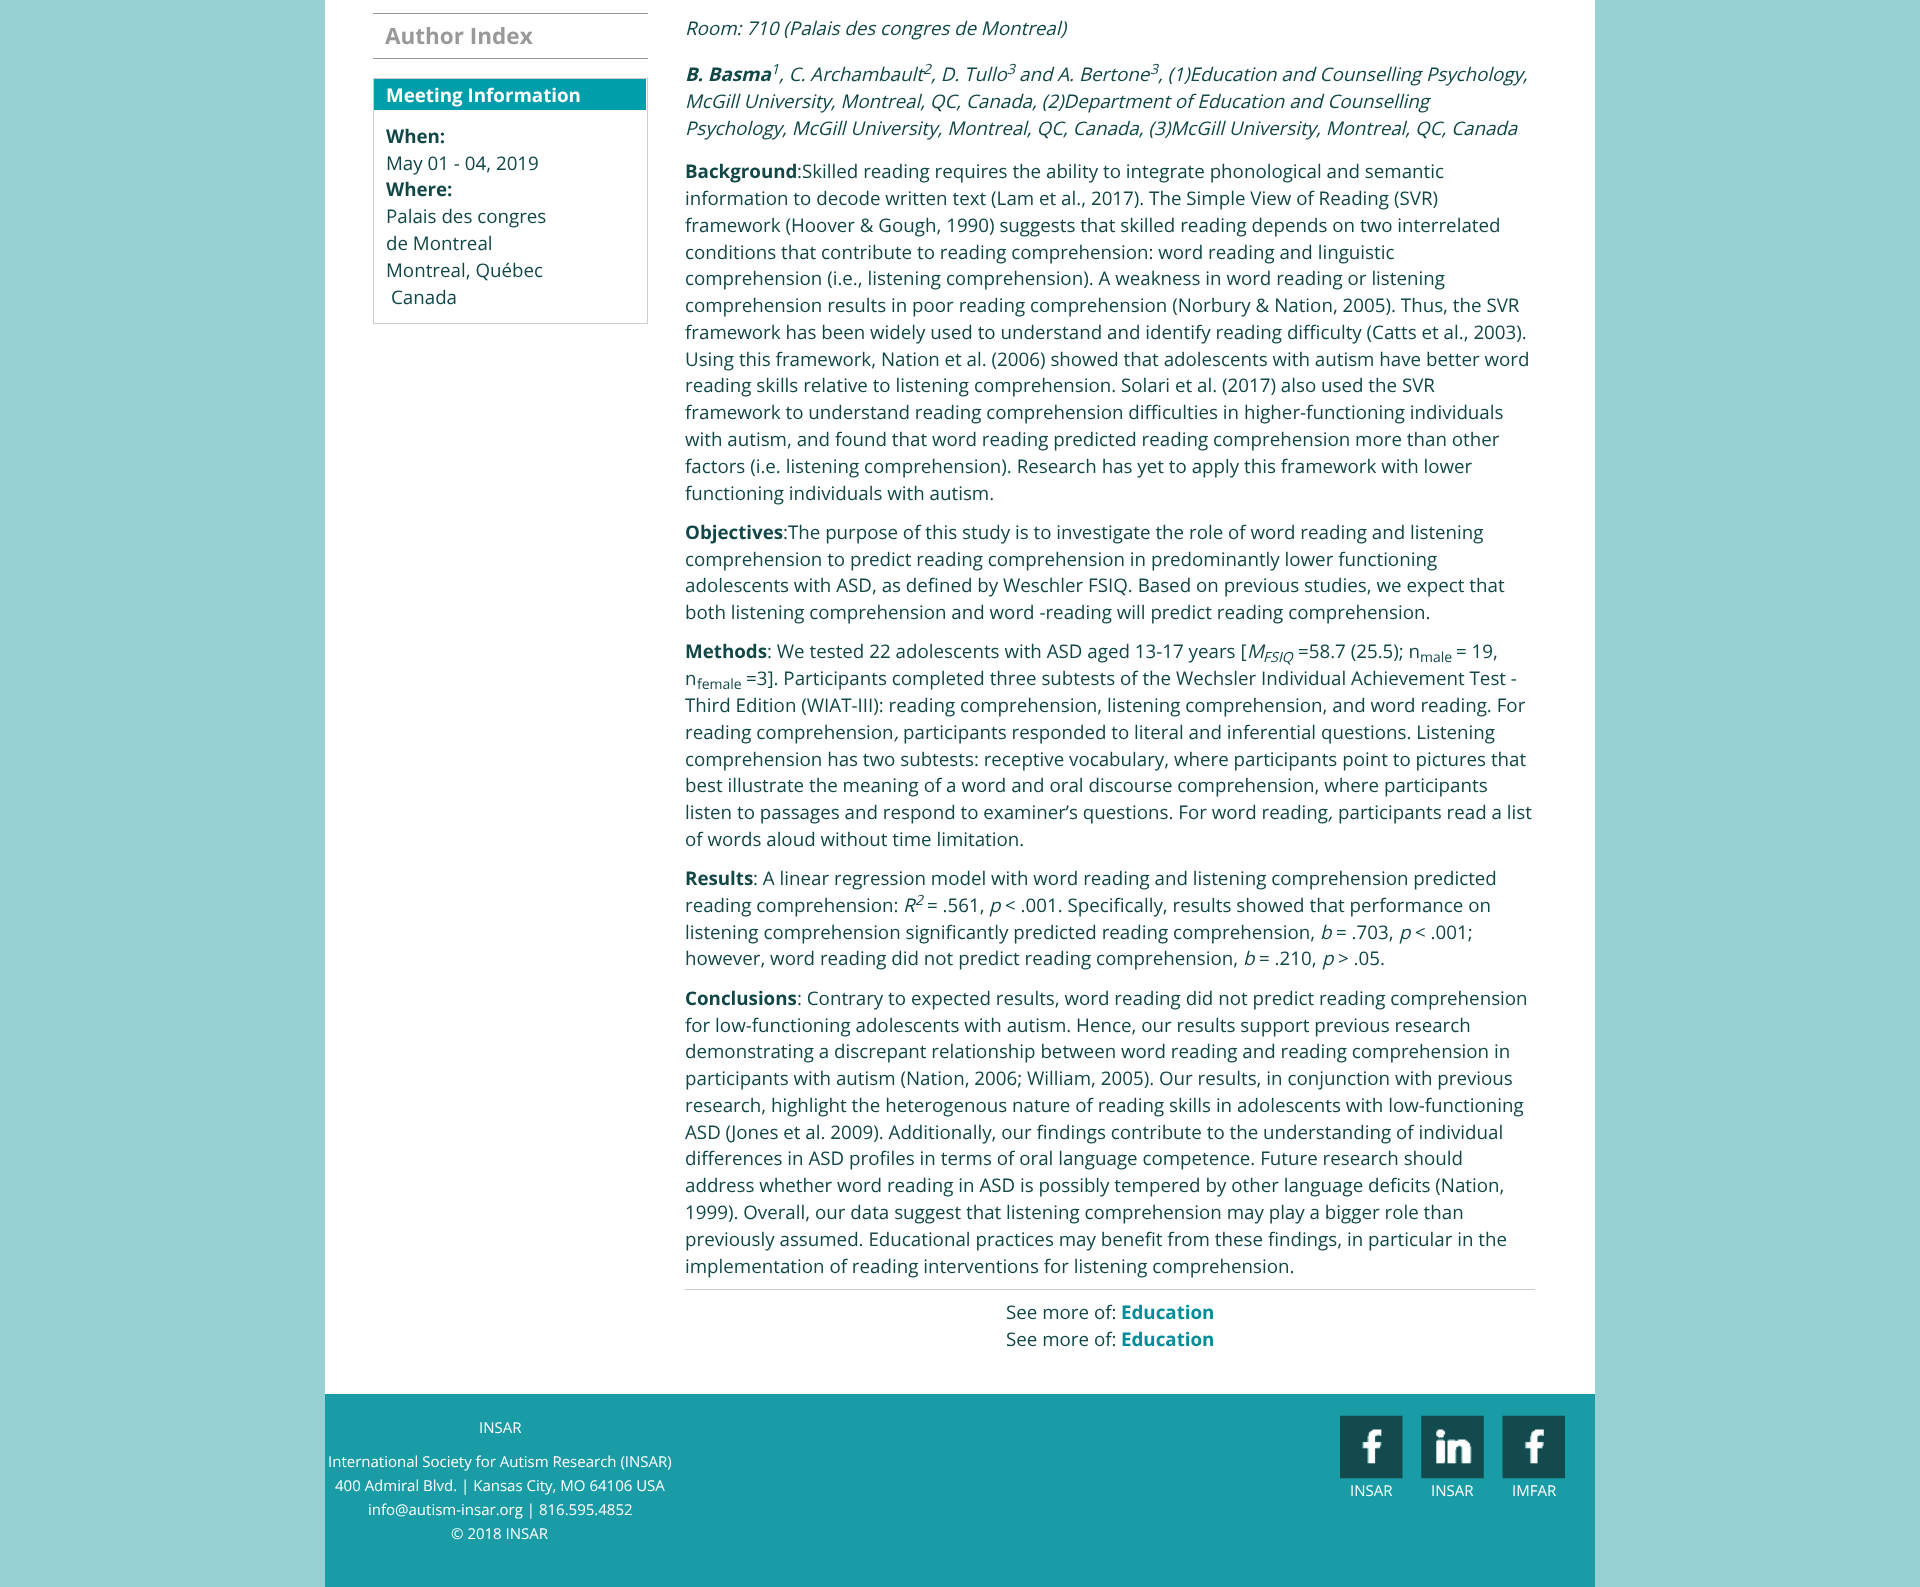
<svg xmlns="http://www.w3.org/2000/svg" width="1920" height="1587">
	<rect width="100%" height="100%" fill="#98D1D4" />
	<rect x="325" y="0" width="1270" height="1394" fill="#FFFFFF" />
	<rect x="373" y="58" width="275" height="1" fill="#999999" />
	<rect x="373" y="13" width="275" height="1" fill="#999999" />
	<text x="385" y="44" font-family="Open Sans" font-size="22.5" font-weight="700" fill="#999999">Author Index</text>
	<rect x="373.5" y="78.5" width="274" height="245" fill="none" stroke="#CCCCCC" />
	<rect x="374" y="79" width="272" height="31" fill="#009DAA" />
	<text x="386" y="102" font-family="Open Sans" font-size="18.75" font-weight="700" fill="#FFFFFF">Meeting Information</text>
	<text x="386" y="143" font-family="Open Sans" font-size="18.75" font-weight="700" fill="#124747">When:</text>
	<text x="386" y="170" font-family="Open Sans" font-size="18.75" fill="#124747">May 01 - 04, 2019</text>
	<text x="386" y="196" font-family="Open Sans" font-size="18.75" font-weight="700" fill="#124747">Where:</text>
	<g font-family="Open Sans" font-size="18.75" fill="#124747">
		<text x="386" y="223">Palais des congres</text>
		<text x="386" y="250">de Montreal</text>
		<text x="386" y="277">Montreal, Québec</text>
		<text x="391" y="304">Canada</text>
	</g>
	<text x="685" y="35" font-family="Open Sans" font-size="18.75" font-style="italic" fill="#124747">Room: 710 (Palais des congres de Montreal)</text>
	<text x="685" y="81" font-family="Open Sans" font-size="18.75" font-weight="700" font-style="italic" fill="#124747">B. Basma</text>
	<text x="771" y="74" font-family="Open Sans" font-size="14" font-style="italic" fill="#124747">1</text>
	<g font-family="Open Sans" font-size="18.75" font-style="italic" fill="#124747">
		<text x="779" y="81">, C. Archambault</text>
		<text x="931" y="81">, D. Tullo</text>
	</g>
	<g font-family="Open Sans" font-size="14" font-style="italic" fill="#124747">
		<text x="923" y="74">2</text>
		<text x="1007" y="74">3</text>
	</g>
	<g font-family="Open Sans" font-size="18.75" font-style="italic" fill="#124747">
		<text x="1019" y="81">and A. Bertone</text>
		<text x="1158" y="81">, (1)Education and Counselling Psychology,</text>
	</g>
	<text x="1150" y="74" font-family="Open Sans" font-size="14" font-style="italic" fill="#124747">3</text>
	<g font-family="Open Sans" font-size="18.75" font-style="italic" fill="#124747">
		<text x="685" y="108">McGill University, Montreal, QC, Canada, (2)Department of Education and Counselling</text>
		<text x="685" y="135">Psychology, McGill University, Montreal, QC, Canada, (3)McGill University, Montreal, QC, Canada</text>
	</g>
	<text x="685" y="178" font-family="Open Sans" font-size="18.75" font-weight="700" fill="#124747">Background</text>
	<g font-family="Open Sans" font-size="18.75" fill="#124747">
		<text x="797" y="178">:Skilled reading requires the ability to integrate phonological and semantic</text>
		<text x="685" y="205">information to decode written text (Lam et al., 2017). The Simple View of Reading (SVR)</text>
		<text x="685" y="232">framework (Hoover &amp; Gough, 1990) suggests that skilled reading depends on two interrelated</text>
		<text x="685" y="259">conditions that contribute to reading comprehension: word reading and linguistic</text>
		<text x="685" y="285">comprehension (i.e., listening comprehension). A weakness in word reading or listening</text>
		<text x="685" y="312">comprehension results in poor reading comprehension (Norbury &amp; Nation, 2005). Thus, the SVR</text>
		<text x="685" y="339">framework has been widely used to understand and identify reading difficulty (Catts et al., 2003).</text>
		<text x="685" y="366">Using this framework, Nation et al. (2006) showed that adolescents with autism have better word</text>
		<text x="685" y="392">reading skills relative to listening comprehension. Solari et al. (2017) also used the SVR</text>
		<text x="685" y="419">framework to understand reading comprehension difficulties in higher-functioning individuals</text>
		<text x="685" y="446">with autism, and found that word reading predicted reading comprehension more than other</text>
		<text x="685" y="473">factors (i.e. listening comprehension). Research has yet to apply this framework with lower</text>
		<text x="685" y="500">functioning individuals with autism.</text>
	</g>
	<text x="685" y="539" font-family="Open Sans" font-size="18.75" font-weight="700" fill="#124747">Objectives</text>
	<g font-family="Open Sans" font-size="18.75" fill="#124747">
		<text x="783" y="539">:The purpose of this study is to investigate the role of word reading and listening</text>
		<text x="685" y="566">comprehension to predict reading comprehension in predominantly lower functioning</text>
		<text x="685" y="592">adolescents with ASD, as defined by Weschler FSIQ. Based on previous studies, we expect that</text>
		<text x="685" y="619">both listening comprehension and word -reading will predict reading comprehension.</text>
	</g>
	<text x="685" y="658" font-family="Open Sans" font-size="18.75" font-weight="700" fill="#124747">Methods</text>
	<text x="767" y="658" font-family="Open Sans" font-size="18.75" fill="#124747">: We tested 22 adolescents with ASD aged 13-17 years [</text>
	<text x="1247" y="658" font-family="Open Sans" font-size="18.75" font-style="italic" fill="#124747">M</text>
	<text x="1263" y="662" font-family="Open Sans" font-size="14" font-style="italic" fill="#124747">FSIQ</text>
	<text x="1298" y="658" font-family="Open Sans" font-size="18.75" fill="#124747">=58.7 (25.5); n</text>
	<text x="1420" y="662" font-family="Open Sans" font-size="14" fill="#124747">male</text>
	<g font-family="Open Sans" font-size="18.75" fill="#124747">
		<text x="1456" y="658">= 19,</text>
		<text x="685" y="685">n</text>
	</g>
	<text x="697" y="689" font-family="Open Sans" font-size="14" fill="#124747">female</text>
	<g font-family="Open Sans" font-size="18.75" fill="#124747">
		<text x="746" y="685">=3]. Participants completed three subtests of the Wechsler Individual Achievement Test -</text>
		<text x="685" y="712">Third Edition (WIAT-III): reading comprehension, listening comprehension, and word reading. For</text>
		<text x="685" y="739">reading comprehension</text>
	</g>
	<text x="894" y="739" font-family="Open Sans" font-size="18.75" font-style="italic" fill="#124747">,</text>
	<g font-family="Open Sans" font-size="18.75" fill="#124747">
		<text x="903" y="739">participants responded to literal and inferential questions. Listening</text>
		<text x="685" y="766">comprehension has two subtests: receptive vocabulary, where participants point to pictures that</text>
		<text x="685" y="792">best illustrate the meaning of a word and oral discourse comprehension, where participants</text>
		<text x="685" y="819">listen to passages and respond to examiner’s questions. For word reading</text>
	</g>
	<text x="1328" y="819" font-family="Open Sans" font-size="18.75" font-style="italic" fill="#124747">,</text>
	<g font-family="Open Sans" font-size="18.75" fill="#124747">
		<text x="1338" y="819">participants read a list</text>
		<text x="685" y="846">of words aloud without time limitation.</text>
	</g>
	<text x="685" y="885" font-family="Open Sans" font-size="18.75" font-weight="700" fill="#124747">Results</text>
	<g font-family="Open Sans" font-size="18.75" fill="#124747">
		<text x="753" y="885">: A linear regression model with word reading and listening comprehension predicted</text>
		<text x="685" y="912">reading comprehension:</text>
	</g>
	<text x="903" y="912" font-family="Open Sans" font-size="18.75" font-style="italic" fill="#124747">R</text>
	<text x="915" y="905" font-family="Open Sans" font-size="14" font-style="italic" fill="#124747">2</text>
	<text x="927" y="912" font-family="Open Sans" font-size="18.75" fill="#124747">= .561,</text>
	<text x="989" y="912" font-family="Open Sans" font-size="18.75" font-style="italic" fill="#124747">p</text>
	<g font-family="Open Sans" font-size="18.75" fill="#124747">
		<text x="1005" y="912">&lt; .001. Specifically, results showed that performance on</text>
		<text x="685" y="939">listening comprehension significantly predicted reading comprehension,</text>
	</g>
	<text x="1320" y="939" font-family="Open Sans" font-size="18.75" font-style="italic" fill="#124747">b</text>
	<text x="1336" y="939" font-family="Open Sans" font-size="18.75" fill="#124747">= .703,</text>
	<text x="1399" y="939" font-family="Open Sans" font-size="18.75" font-style="italic" fill="#124747">p</text>
	<g font-family="Open Sans" font-size="18.75" fill="#124747">
		<text x="1415" y="939">&lt; .001;</text>
		<text x="685" y="965">however, word reading did not predict reading comprehension,</text>
	</g>
	<text x="1243" y="965" font-family="Open Sans" font-size="18.75" font-style="italic" fill="#124747">b</text>
	<text x="1259" y="965" font-family="Open Sans" font-size="18.75" fill="#124747">= .210,</text>
	<text x="1322" y="965" font-family="Open Sans" font-size="18.75" font-style="italic" fill="#124747">p</text>
	<text x="1338" y="965" font-family="Open Sans" font-size="18.75" fill="#124747">&gt; .05.</text>
	<text x="685" y="1005" font-family="Open Sans" font-size="18.75" font-weight="700" fill="#124747">Conclusions</text>
	<g font-family="Open Sans" font-size="18.75" fill="#124747">
		<text x="797" y="1005">: Contrary to expected results, word reading did not predict reading comprehension</text>
		<text x="685" y="1032">for low-functioning adolescents with autism. Hence, our results support previous research</text>
		<text x="685" y="1058">demonstrating a discrepant relationship between word reading and reading comprehension in</text>
		<text x="685" y="1085">participants with autism (Nation, 2006; William, 2005). Our results, in conjunction with previous</text>
		<text x="685" y="1112">research, highlight the heterogenous nature of reading skills in adolescents with low-functioning</text>
		<text x="685" y="1139">ASD (Jones et al. 2009). Additionally, our findings contribute to the understanding of individual</text>
		<text x="685" y="1165">differences in ASD profiles in terms of oral language competence. Future research should</text>
		<text x="685" y="1192">address whether word reading in ASD is possibly tempered by other language deficits (Nation,</text>
		<text x="685" y="1219">1999). Overall, our data suggest that listening comprehension may play a bigger role than</text>
		<text x="685" y="1246">previously assumed. Educational practices may benefit from these findings, in particular in the</text>
		<text x="685" y="1273">implementation of reading interventions for listening comprehension.</text>
	</g>
	<rect x="685" y="1289" width="850" height="1" fill="#CCCCCC" />
	<text x="1006" y="1319" font-family="Open Sans" font-size="18.75" fill="#124747">See more of:</text>
	<text x="1121" y="1319" font-family="Open Sans" font-size="18.75" font-weight="700" fill="#008C99">Education</text>
	<text x="1006" y="1346" font-family="Open Sans" font-size="18.75" fill="#124747">See more of:</text>
	<text x="1121" y="1346" font-family="Open Sans" font-size="18.75" font-weight="700" fill="#008C99">Education</text>
	<rect x="325" y="1394" width="1270" height="193" fill="#1A9CA6" />
	<g font-family="Open Sans" font-size="15" fill="#FFFFFF">
		<text x="479" y="1433">INSAR</text>
		<text x="328" y="1467">International Society for Autism Research (INSAR)</text>
		<text x="335" y="1491">400 Admiral Blvd. | Kansas City, MO 64106 USA</text>
		<text x="368" y="1515">info@autism-insar.org | 816.595.4852</text>
		<text x="451" y="1539">© 2018 INSAR</text>
	</g>
	<image x="1340" y="1415" width="63" height="64" href="assets/img1.png" />
	<text x="1350" y="1496" font-family="Open Sans" font-size="15" fill="#FFFFFF">INSAR</text>
	<image x="1421" y="1415" width="63" height="64" href="assets/img2.png" />
	<text x="1431" y="1496" font-family="Open Sans" font-size="15" fill="#FFFFFF">INSAR</text>
	<image x="1502" y="1415" width="63" height="64" href="assets/img3.png" />
	<text x="1512" y="1496" font-family="Open Sans" font-size="15" fill="#FFFFFF">IMFAR</text>
</svg>
